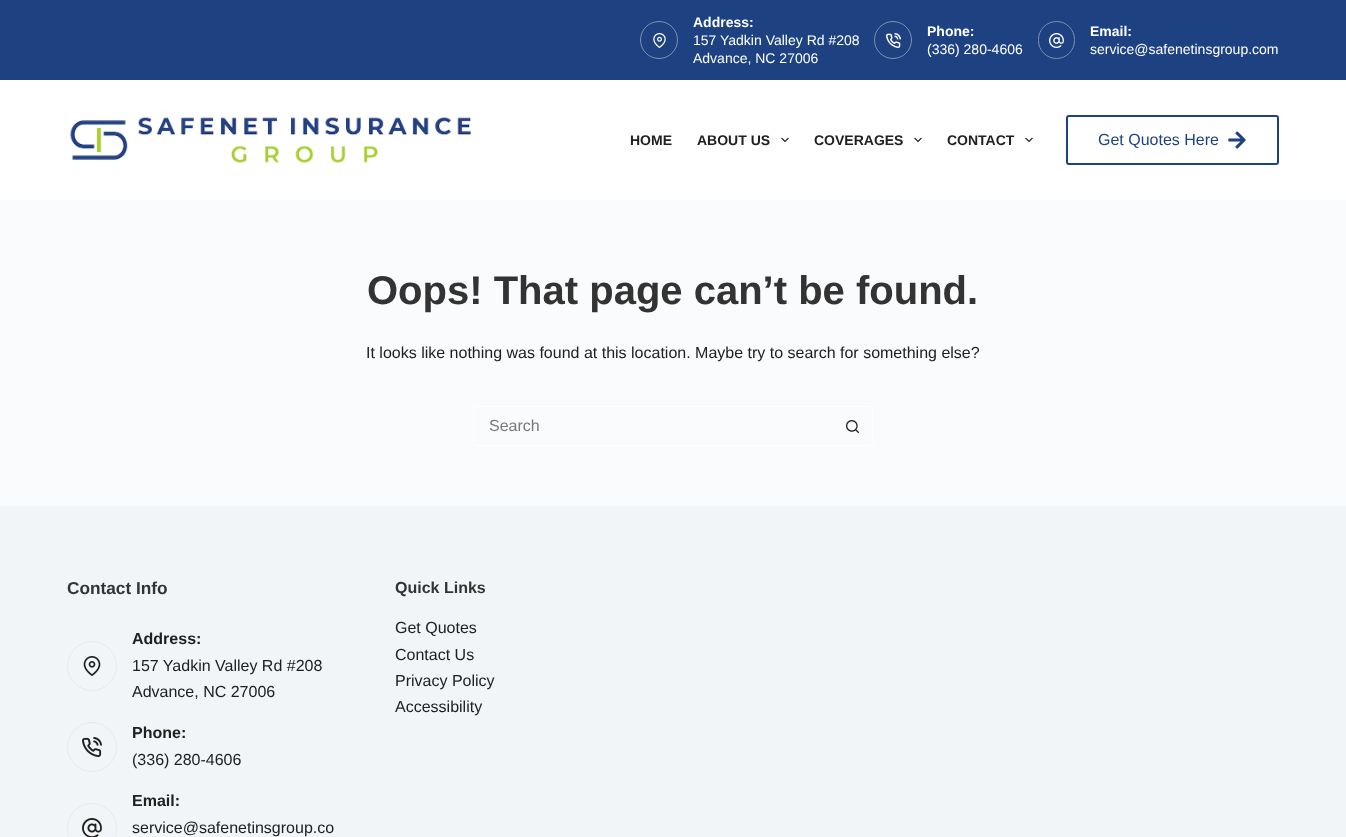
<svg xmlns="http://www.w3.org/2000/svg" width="1346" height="837">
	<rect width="100%" height="100%" fill="#FAFBFC" />
	<rect x="0" y="0" width="1346" height="80" fill="#1E4281" />
	<circle cx="659" cy="40" r="18.5" fill="none" stroke="#7C90B3" />
	<image x="653" y="33" width="13" height="15" href="assets/img1.png" />
	<text x="693" y="27" font-family="Liberation Sans" font-size="14" font-weight="700" fill="#FFFFFF">Address:</text>
	<g font-family="Liberation Sans" font-size="14" fill="#FFFFFF">
		<text x="693" y="45">157 Yadkin Valley Rd #208</text>
		<text x="693" y="63">Advance, NC 27006</text>
	</g>
	<circle cx="893" cy="40" r="18.5" fill="none" stroke="#7C90B3" />
	<image x="886" y="33" width="15" height="15" href="assets/img2.png" />
	<text x="927" y="36" font-family="Liberation Sans" font-size="14" font-weight="700" fill="#FFFFFF">Phone:</text>
	<text x="927" y="54" font-family="Liberation Sans" font-size="14" fill="#FFFFFF">(336) 280-4606</text>
	<rect x="1038.5" y="21.5" width="36" height="37" rx="18" fill="none" stroke="#7C90B3" />
	<image x="1049" y="33" width="15" height="15" href="assets/img3.png" />
	<text x="1090" y="36" font-family="Liberation Sans" font-size="14" font-weight="700" fill="#FFFFFF">Email:</text>
	<text x="1090" y="54" font-family="Liberation Sans" font-size="14" fill="#FFFFFF">service@safenetinsgroup.com</text>
	<rect x="0" y="80" width="1346" height="120" fill="#FFFFFF" />
	<image x="70" y="117" width="401" height="46" href="assets/img4.png" />
	<g font-family="Liberation Sans" font-size="14" font-weight="700" fill="#202020">
		<text x="630" y="145">HOME</text>
		<text x="697" y="145">ABOUT US</text>
	</g>
	<image x="781" y="137" width="8" height="6" href="assets/img5.png" />
	<text x="814" y="145" font-family="Liberation Sans" font-size="14" font-weight="700" fill="#202020">COVERAGES</text>
	<image x="914" y="137" width="8" height="6" href="assets/img5.png" />
	<text x="947" y="145" font-family="Liberation Sans" font-size="14" font-weight="700" fill="#202020">CONTACT</text>
	<image x="1025" y="137" width="8" height="6" href="assets/img5.png" />
	<rect x="1067" y="116" width="211" height="48" rx="2" fill="none" stroke="#1E4281" stroke-width="2" />
	<text x="1098" y="145" font-family="Liberation Sans" font-size="16" fill="#1E4281">Get Quotes Here</text>
	<image x="1228" y="131" width="18" height="18" href="assets/img6.png" />
	<text x="367" y="304" font-family="Liberation Sans" font-size="40" font-weight="700" fill="#333333">Oops! That page can’t be found.</text>
	<text x="366" y="358" font-family="Liberation Sans" font-size="16" fill="#202020">It looks like nothing was found at this location. Maybe try to search for something else?</text>
	<path d="M476 406H833V446H476C474 446 473 445 473 443V409C473 407 474 406 476 406ZM476 407H833V445H475C473 443 474 438 474 437V409L475 407Z" fill="#FFFFFF" fill-rule="evenodd" />
	<text x="489" y="431" font-family="Liberation Sans" font-size="16" fill="#787879">Search</text>
	<path d="M833 406H870C872 406 873 407 873 409V443C873 445 872 446 870 446H833ZM833 407H870C871 407 872 408 872 409V443C872 444 871 445 870 445H833Z" fill="#FFFFFF" fill-rule="evenodd" />
	<image x="846" y="420" width="13" height="13" href="assets/img7.png" />
	<rect x="0" y="506" width="1346" height="331" fill="#F2F5F7" />
	<text x="67" y="594" font-family="Liberation Sans" font-size="17.25" font-weight="700" fill="#333333">Contact Info</text>
	<circle cx="92" cy="666" r="24.5" fill="none" stroke="#E6EAEE" />
	<image x="83" y="656" width="18" height="20" href="assets/img8.png" />
	<text x="132" y="644" font-family="Liberation Sans" font-size="16" font-weight="700" fill="#202020">Address:</text>
	<g font-family="Liberation Sans" font-size="16" fill="#202020">
		<text x="132" y="671">157 Yadkin Valley Rd #208</text>
		<text x="132" y="697">Advance, NC 27006</text>
	</g>
	<circle cx="92" cy="747" r="24.5" fill="none" stroke="#E6EAEE" />
	<image x="82" y="737" width="20" height="20" href="assets/img9.png" />
	<text x="132" y="738" font-family="Liberation Sans" font-size="16" font-weight="700" fill="#202020">Phone:</text>
	<text x="132" y="765" font-family="Liberation Sans" font-size="16" fill="#202020">(336) 280-4606</text>
	<circle cx="92" cy="828" r="24.5" fill="none" stroke="#E6EAEE" />
	<image x="82" y="818" width="20" height="19" href="assets/img10.png" />
	<text x="132" y="806" font-family="Liberation Sans" font-size="16" font-weight="700" fill="#202020">Email:</text>
	<text x="132" y="833" font-family="Liberation Sans" font-size="16" fill="#202020">service@safenetinsgroup.co</text>
	<text x="395" y="593" font-family="Liberation Sans" font-size="16" font-weight="700" fill="#333333">Quick Links</text>
	<g font-family="Liberation Sans" font-size="16" fill="#202020">
		<text x="395" y="633">Get Quotes</text>
		<text x="395" y="660">Contact Us</text>
		<text x="395" y="686">Privacy Policy</text>
		<text x="395" y="712">Accessibility</text>
	</g>
</svg>
